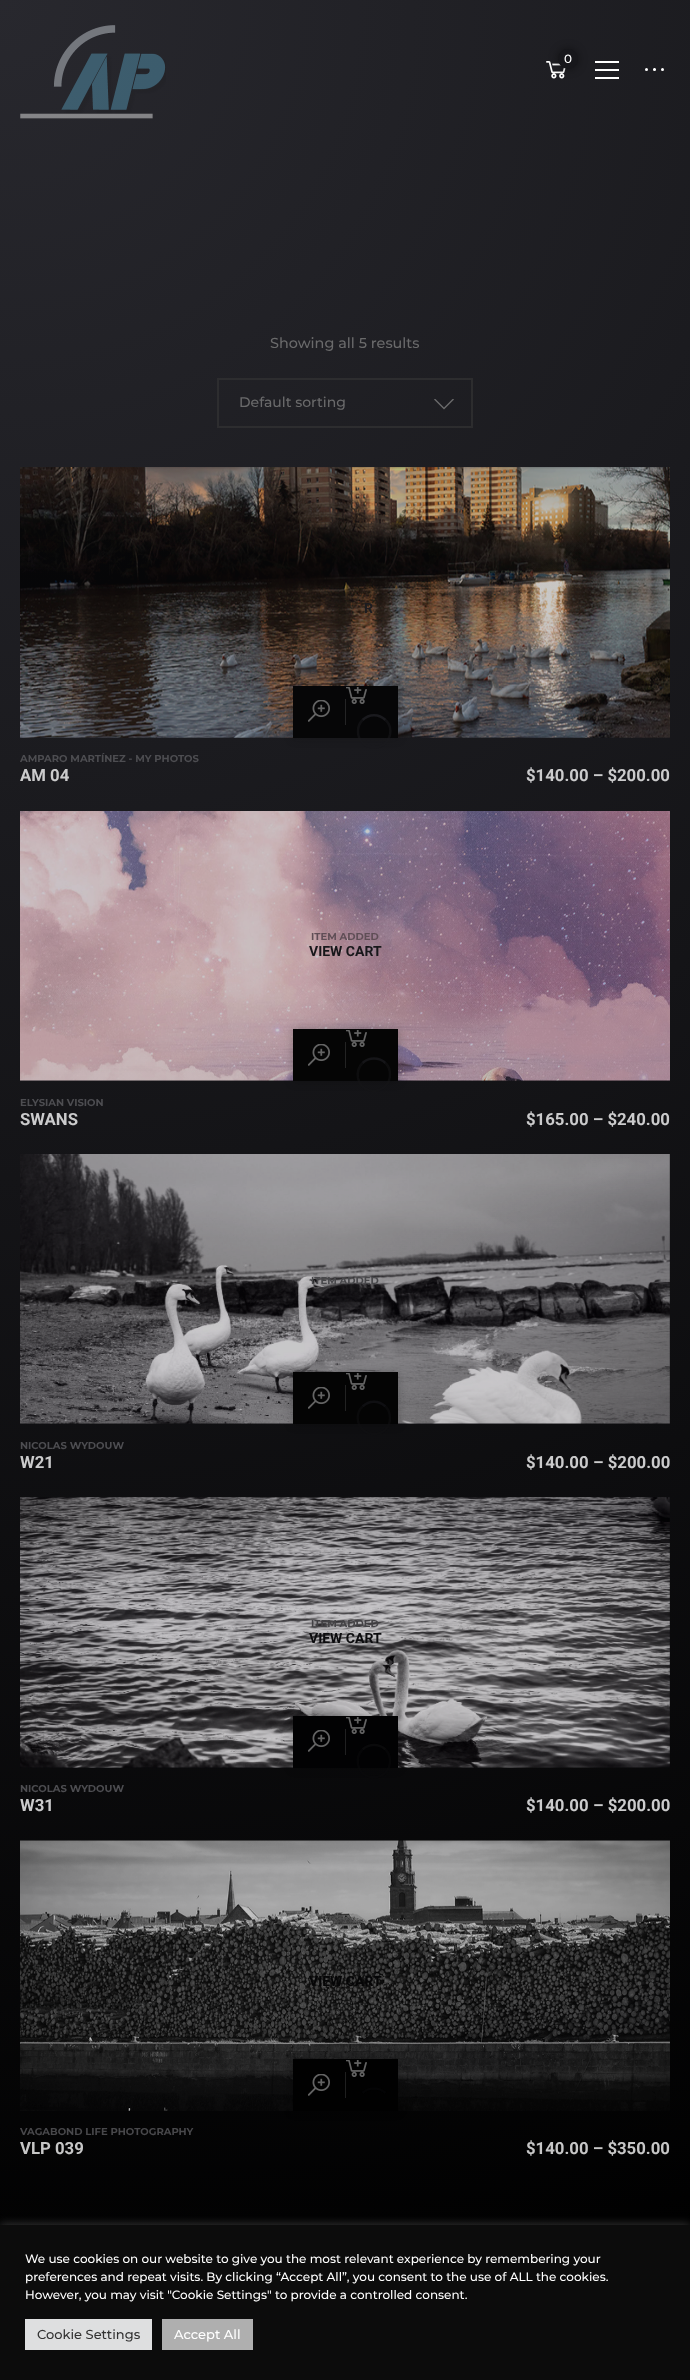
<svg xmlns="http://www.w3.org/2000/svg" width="690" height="2380">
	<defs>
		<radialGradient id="g1" gradientUnits="userSpaceOnUse" cx="0" cy="0" r="3366"><stop offset="0" stop-color="#28282E" /><stop offset="0.7" stop-color="#000000" /></radialGradient>
		<clipPath id="clip1"><rect x="434" y="399" width="20" height="11" /></clipPath>
	</defs>
	<rect width="100%" height="100%" fill="#FFFFFF" />
	<rect x="0" y="0" width="690" height="2225" fill="url(#g1)" />
	<image x="20" y="25" width="146" height="94" href="assets/img1.png" />
	<image x="546" y="61" width="20" height="18" href="assets/img2.png" />
	<rect x="558" y="49" width="20" height="20" rx="10" fill="#000000" fill-opacity="0.45" filter="blur(5px)" />
	<circle cx="568" cy="59" r="10" fill="#17171B" />
	<text x="564" y="63" font-family="Montserrat" font-size="12" font-weight="500" fill="#FFFFFF">0</text>
	<image x="595" y="61" width="24" height="18" href="assets/img3.png" />
	<circle cx="646.5" cy="69.5" r="1.5" fill="#FFFFFF" />
	<circle cx="654.5" cy="69.5" r="1.5" fill="#FFFFFF" />
	<path d="M653 69.5L654.5 68L656 69.5L654.5 71Z" fill="#FFFFFF" />
	<circle cx="662.5" cy="69.5" r="1.5" fill="#FFFFFF" />
	<text x="270" y="348" font-family="Montserrat" font-size="14.4" font-weight="500" fill="#6A6A6B">Showing all 5 results</text>
	<rect x="218" y="379" width="254" height="48" fill="none" stroke="#313133" stroke-opacity="0.77" stroke-width="2" />
	<text x="239" y="407" font-family="Montserrat" font-size="14" font-weight="500" fill="#6A6A6B">Default sorting</text>
	<g clip-path="url(#clip1)">
		<path d="M435 398.5L444 407.5L453 398.5L454 399.5L444 409.5L434 399.5Z" fill="#6A6A6B" />
	</g>
	<image x="20" y="467" width="650" height="271" href="assets/img4.png" />
	<text x="364" y="613" font-family="Roboto" font-size="14" font-weight="700" fill="#1C1C20">R</text>
	<rect x="293" y="686" width="105" height="52" fill="#060607" fill-opacity="0.25" filter="blur(5px)" />
	<rect x="293" y="686" width="105" height="52" fill="#060607" />
	<image x="308" y="700" width="22" height="22" href="assets/img5.png" />
	<rect x="345" y="699" width="1" height="26" fill="#242425" />
	<image x="346" y="687" width="21" height="17" href="assets/img6.png" />
	<path d="M362.5 720C369 713.5 379 713.5 385.5 720" fill="none" stroke="#1A1A1E" stroke-width="2.5" />
	<path d="M385.5 720C389.5 723.5 391 729 390 734.5C386 753.5 358 750.5 358 731.5C358 727 359.5 723 362.5 720" fill="none" stroke="#1A1A1E" stroke-opacity="0.5" stroke-width="2.5" />
	<text x="20" y="762" font-family="Montserrat" font-size="10" font-weight="700" fill="#4D4D51">AMPARO MARTÍNEZ - MY PHOTOS</text>
	<g font-family="Roboto" font-size="16.75" font-weight="700" fill="#CBCBCC">
		<text x="20" y="781">AM 04</text>
		<text x="526" y="781">$140.00 – $</text>
		<text x="617" y="781">200.00</text>
	</g>
	<image x="20" y="811" width="650" height="270" href="assets/img7.png" />
	<text x="311" y="940" font-family="Montserrat" font-size="10" font-weight="700" fill="#5F4E56">ITEM ADDED</text>
	<text x="309" y="956" font-family="Roboto" font-size="14" font-weight="700" fill="#17171A">VIEW CART</text>
	<rect x="293" y="1029" width="105" height="52" fill="#050505" fill-opacity="0.25" filter="blur(5px)" />
	<rect x="293" y="1029" width="105" height="52" fill="#050505" />
	<image x="308" y="1044" width="22" height="22" href="assets/img8.png" />
	<rect x="345" y="1042" width="1" height="26" fill="#232323" />
	<image x="346" y="1030" width="21" height="17" href="assets/img9.png" />
	<path d="M362.5 1063C369 1057 379 1057 385.5 1063" fill="none" stroke="#151518" stroke-width="2.5" />
	<path d="M385.5 1063C388.5 1066 390 1070.5 390 1074.5C390 1094 362 1097 358 1078C357 1072.5 358.5 1067 362.5 1063" fill="none" stroke="#151518" stroke-opacity="0.5" stroke-width="2.5" />
	<text x="20" y="1106" font-family="Montserrat" font-size="10" font-weight="700" fill="#4D4D51">ELYSIAN VISION</text>
	<g font-family="Roboto" font-size="16.75" font-weight="700" fill="#CBCBCC">
		<text x="20" y="1125">SWANS</text>
		<text x="526" y="1125">$165.00 – $240.00</text>
	</g>
	<image x="20" y="1154" width="650" height="270" href="assets/img10.png" />
	<text x="311" y="1284" font-family="Montserrat" font-size="10" font-weight="700" fill="#48484B">ITEM ADDED</text>
	<rect x="293" y="1372" width="105" height="52" fill="#040404" fill-opacity="0.25" filter="blur(5px)" />
	<rect x="293" y="1372" width="105" height="52" fill="#040404" />
	<image x="308" y="1387" width="22" height="22" href="assets/img11.png" />
	<rect x="345" y="1385" width="1" height="26" fill="#222222" />
	<image x="346" y="1373" width="21" height="17" href="assets/img12.png" />
	<path d="M362.5 1406.5C369 1400 379 1400 385.5 1406.5" fill="none" stroke="#0F0F12" stroke-width="2.5" />
	<path d="M385.5 1406.5C388.5 1409.5 390 1413.5 390 1418C390 1437.5 362 1440 358 1421C357 1416 358.5 1410 362.5 1406.5" fill="none" stroke="#0F0F11" stroke-opacity="0.5" stroke-width="2.5" />
	<text x="20" y="1449" font-family="Montserrat" font-size="10" font-weight="700" fill="#4D4D51">NICOLAS WYDOUW</text>
	<g font-family="Roboto" font-size="16.75" font-weight="700" fill="#CBCBCC">
		<text x="20" y="1468">W21</text>
		<text x="526" y="1468">$140.00</text>
		<text x="593" y="1468">– $200.00</text>
	</g>
	<image x="20" y="1497" width="650" height="271" href="assets/img13.png" />
	<text x="311" y="1627" font-family="Montserrat" font-size="10" font-weight="700" fill="#434245">ITEM ADDED</text>
	<text x="309" y="1643" font-family="Roboto" font-size="14" font-weight="700" fill="#0C0C0E">VIEW CART</text>
	<rect x="293" y="1716" width="105" height="52" fill="#020203" fill-opacity="0.25" filter="blur(5px)" />
	<rect x="293" y="1716" width="105" height="52" fill="#020203" />
	<image x="308" y="1730" width="22" height="22" href="assets/img14.png" />
	<rect x="345" y="1729" width="1" height="26" fill="#202021" />
	<image x="346" y="1717" width="21" height="17" href="assets/img15.png" />
	<path d="M362.5 1749.5C369 1743.5 379 1743.5 385.5 1749.5" fill="none" stroke="#0A0A0B" stroke-width="2.5" />
	<path d="M385.5 1749.5C388.5 1752.5 390 1757 390 1761C390 1780.5 362 1783.5 358 1764.5C357 1759 358.5 1753.5 362.5 1749.5" fill="none" stroke="#0A0A0B" stroke-opacity="0.5" stroke-width="2.5" />
	<text x="20" y="1792" font-family="Montserrat" font-size="10" font-weight="700" fill="#4D4D51">NICOLAS WYDOUW</text>
	<g font-family="Roboto" font-size="16.75" font-weight="700" fill="#CBCBCC">
		<text x="20" y="1811">W31</text>
		<text x="526" y="1811">$140.00</text>
		<text x="593" y="1811">– $200.00</text>
	</g>
	<image x="20" y="1840" width="650" height="271" href="assets/img16.png" />
	<text x="309" y="1986" font-family="Roboto" font-size="14" font-weight="700" fill="#060607">VIEW CART</text>
	<rect x="293" y="2059" width="105" height="52" fill="#010101" fill-opacity="0.25" filter="blur(5px)" />
	<rect x="293" y="2059" width="105" height="52" fill="#010101" />
	<image x="308" y="2074" width="22" height="22" href="assets/img17.png" />
	<rect x="345" y="2072" width="1" height="26" fill="#1F1F1F" />
	<image x="346" y="2060" width="21" height="17" href="assets/img18.png" />
	<path d="M362.5 2093C369 2087 379 2087 385.5 2093" fill="none" stroke="#040405" stroke-width="2.5" />
	<text x="20" y="2135" font-family="Montserrat" font-size="10" font-weight="700" fill="#48484B">VAGABOND LIFE PHOTOGRAPHY</text>
	<g font-family="Roboto" font-size="16.75" font-weight="700" fill="#C6C6C6">
		<text x="20" y="2154">VLP 039</text>
		<text x="526" y="2154">$140.00 – $350.00</text>
	</g>
	<rect x="0" y="2224" width="690" height="155" fill="#ACABAB" fill-opacity="0.3" filter="blur(5px)" />
	<rect x="0" y="2225" width="690" height="155" fill="#0C0C0C" />
	<g font-family="Montserrat" font-size="12" font-weight="500" fill="#FFFFFF">
		<text x="25" y="2263">We use cookies on our website to give you the most relevant experience by remembering your</text>
		<text x="25" y="2281">preferences and repeat visits. By clicking “Accept All”, you consent to the use of ALL the cookies.</text>
		<text x="25" y="2299">However, you may visit "Cookie Settings" to provide a controlled consent.</text>
	</g>
	<rect x="25" y="2319" width="127" height="31" fill="#DEDFE0" />
	<text x="37" y="2339" font-family="Montserrat" font-size="13" font-weight="500" fill="#333333">Cookie Settings</text>
	<rect x="162" y="2319" width="91" height="31" fill="#AFAFAF" />
	<text x="174" y="2339" font-family="Montserrat" font-size="13" font-weight="500" fill="#FFFFFF">Accept All</text>
</svg>
